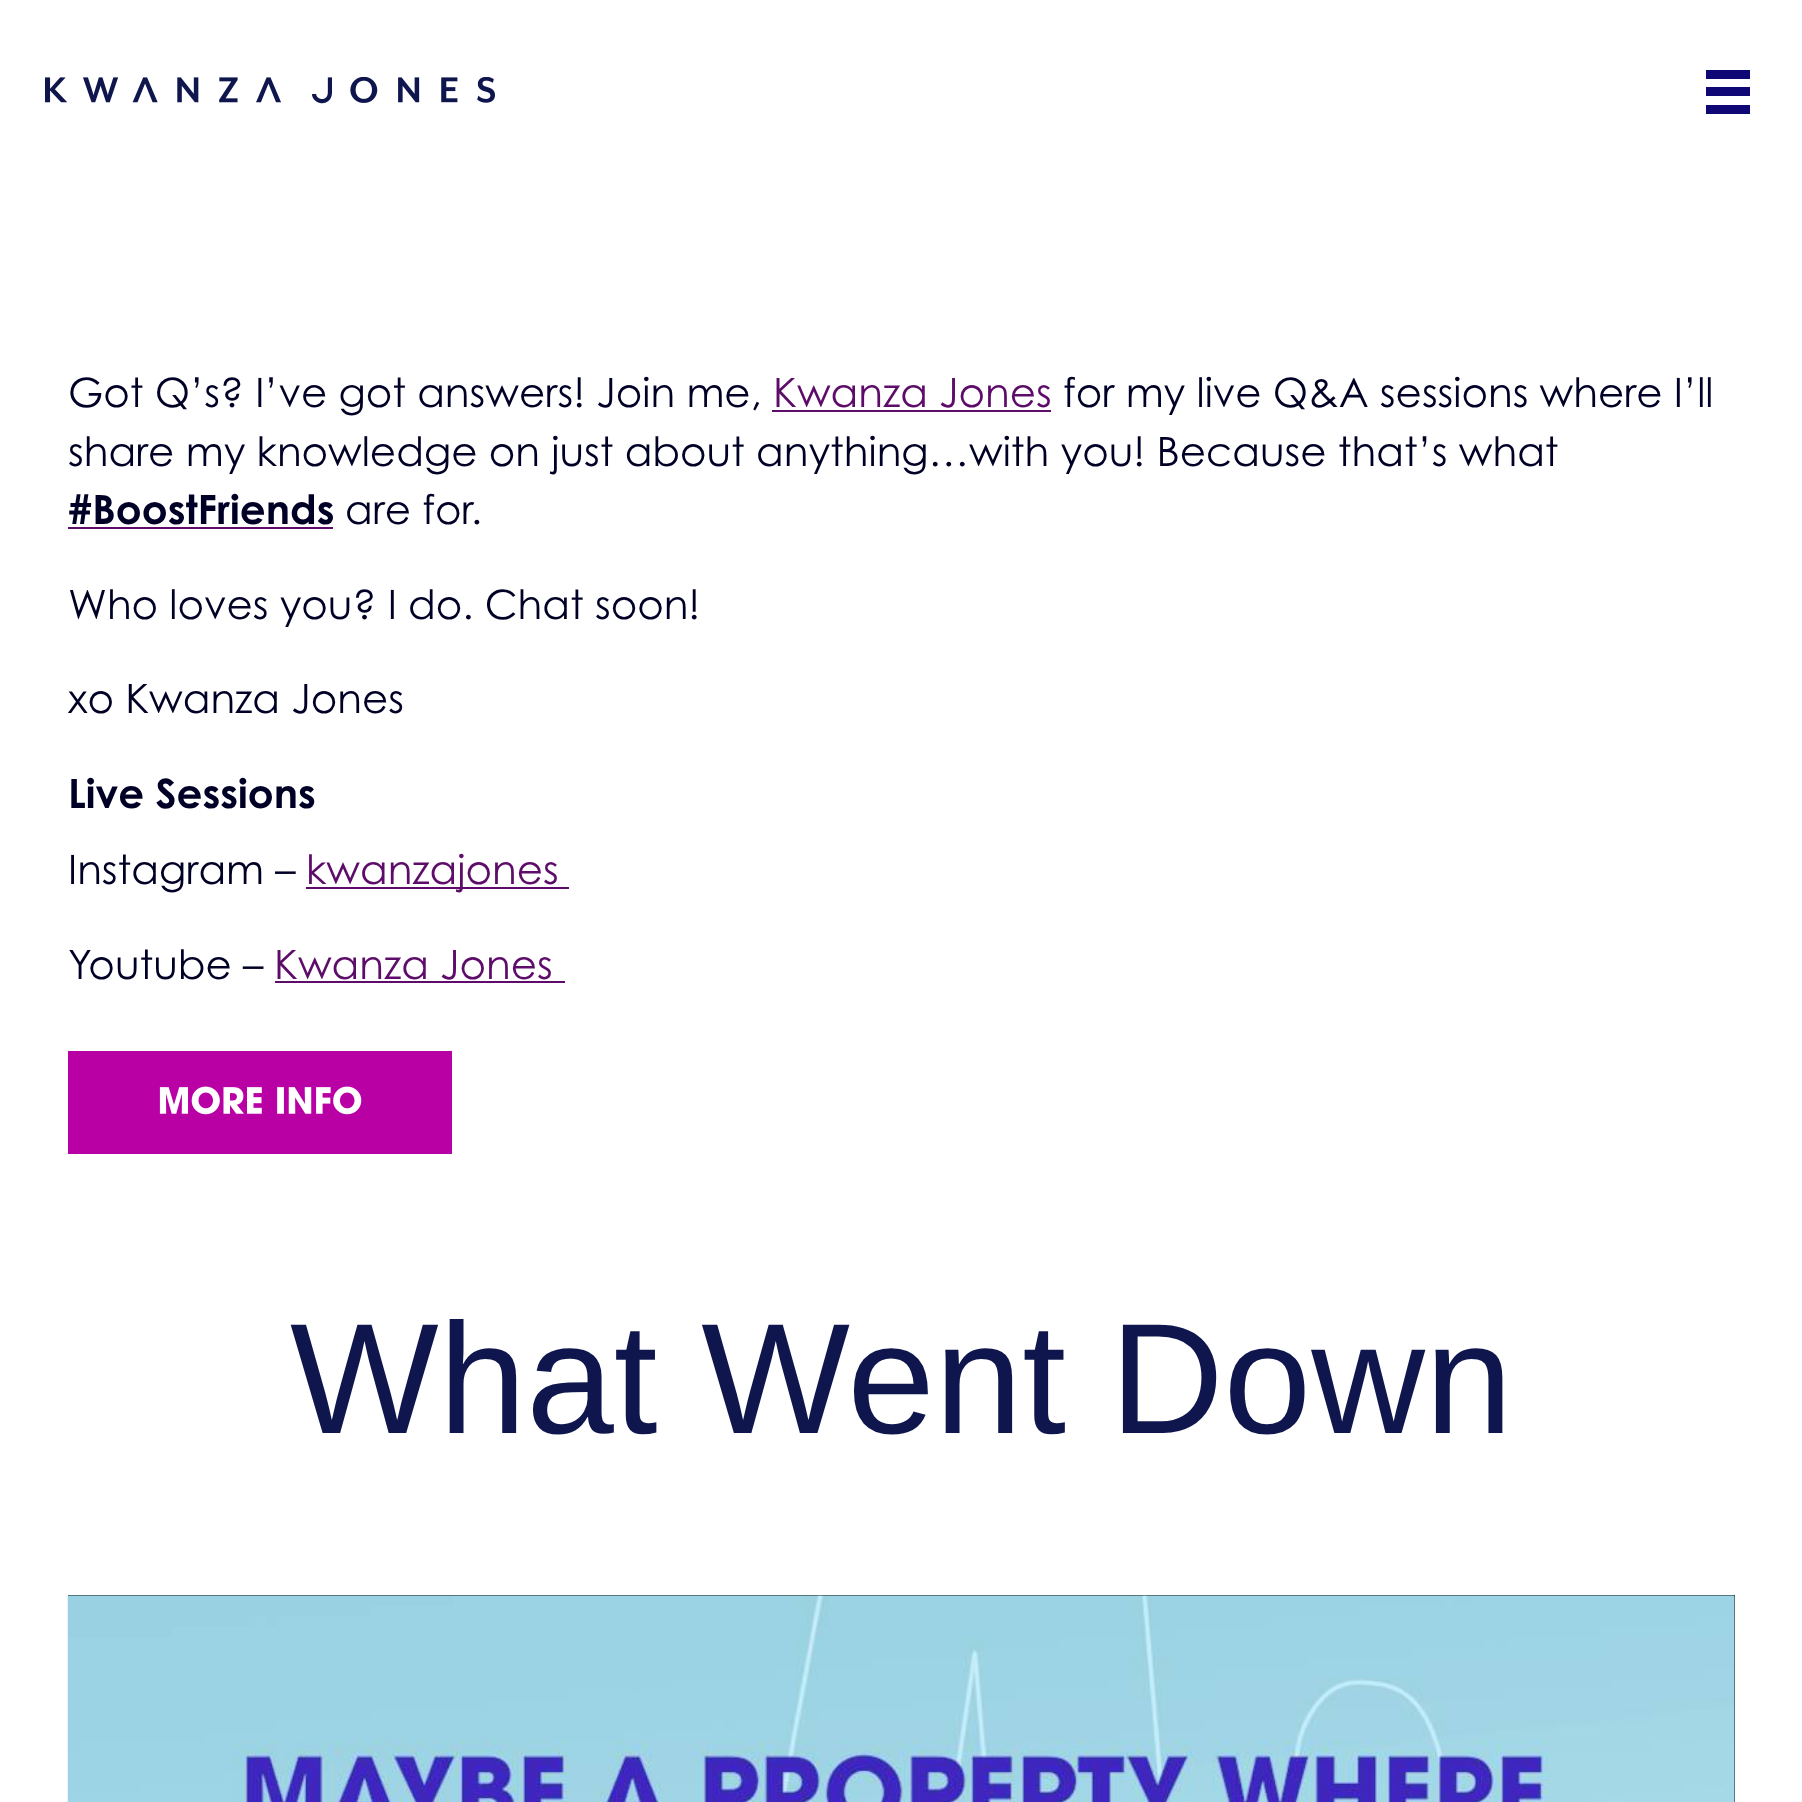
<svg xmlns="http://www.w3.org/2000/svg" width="1802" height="1802">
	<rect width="100%" height="100%" fill="#FFFFFF" />
	<image x="45" y="77" width="450" height="27" href="assets/img1.png" />
	<rect x="1706" y="70" width="44" height="9" fill="#0E0775" />
	<rect x="1706" y="87" width="44" height="9" fill="#0E0775" />
	<rect x="1706" y="105" width="44" height="9" fill="#0E0775" />
	<text x="68" y="407" font-family="Century Gothic" font-size="40.5" fill="#000026">Got Q’s? I’ve got answers! Join me,</text>
	<text x="773" y="407" font-family="Century Gothic" font-size="40.5" fill="#5D0C69">Kwanza Jones</text>
	<rect x="772" y="410" width="279" height="2" fill="#5D0C69" />
	<g font-family="Century Gothic" font-size="40.5" fill="#000026">
		<text x="1063" y="407">for my live Q&amp;A sessions where I’ll</text>
		<text x="68" y="466">share my knowledge on just about anything…with you! Because that’s what</text>
	</g>
	<text x="68" y="524" font-family="Century Gothic" font-size="40.5" font-weight="700" fill="#000026">#BoostFriends</text>
	<rect x="68" y="527" width="265" height="2" fill="#5D0C69" />
	<g font-family="Century Gothic" font-size="40.5" fill="#000026">
		<text x="345" y="524">are for.</text>
		<text x="68" y="619">Who loves you? I do. Chat soon!</text>
		<text x="68" y="713">xo Kwanza Jones</text>
	</g>
	<text x="68" y="808" font-family="Century Gothic" font-size="40.5" font-weight="700" fill="#000026">Live Sessions</text>
	<text x="68" y="884" font-family="Century Gothic" font-size="40.5" fill="#000026">Instagram –</text>
	<rect x="306" y="887" width="263" height="2" fill="#5D0C69" />
	<text x="306" y="884" font-family="Century Gothic" font-size="40.5" fill="#5D0C69">kwanzajones</text>
	<text x="68" y="979" font-family="Century Gothic" font-size="40.5" fill="#000026">Youtube –</text>
	<text x="274" y="979" font-family="Century Gothic" font-size="40.5" fill="#5D0C69">Kwanza Jones</text>
	<rect x="275" y="981" width="290" height="2" fill="#5D0C69" />
	<rect x="68" y="1051" width="384" height="103" fill="#B900A4" />
	<image x="159" y="1086" width="203" height="29" href="assets/img2.png" />
	<text x="290" y="1433" font-family="Liberation Sans" font-size="157.5" fill="#0E164D">What Went Down</text>
	<rect x="68" y="1595" width="1667" height="207" fill="#000000" />
	<image x="67" y="1595" width="1668" height="207" href="assets/img3.png" />
</svg>
